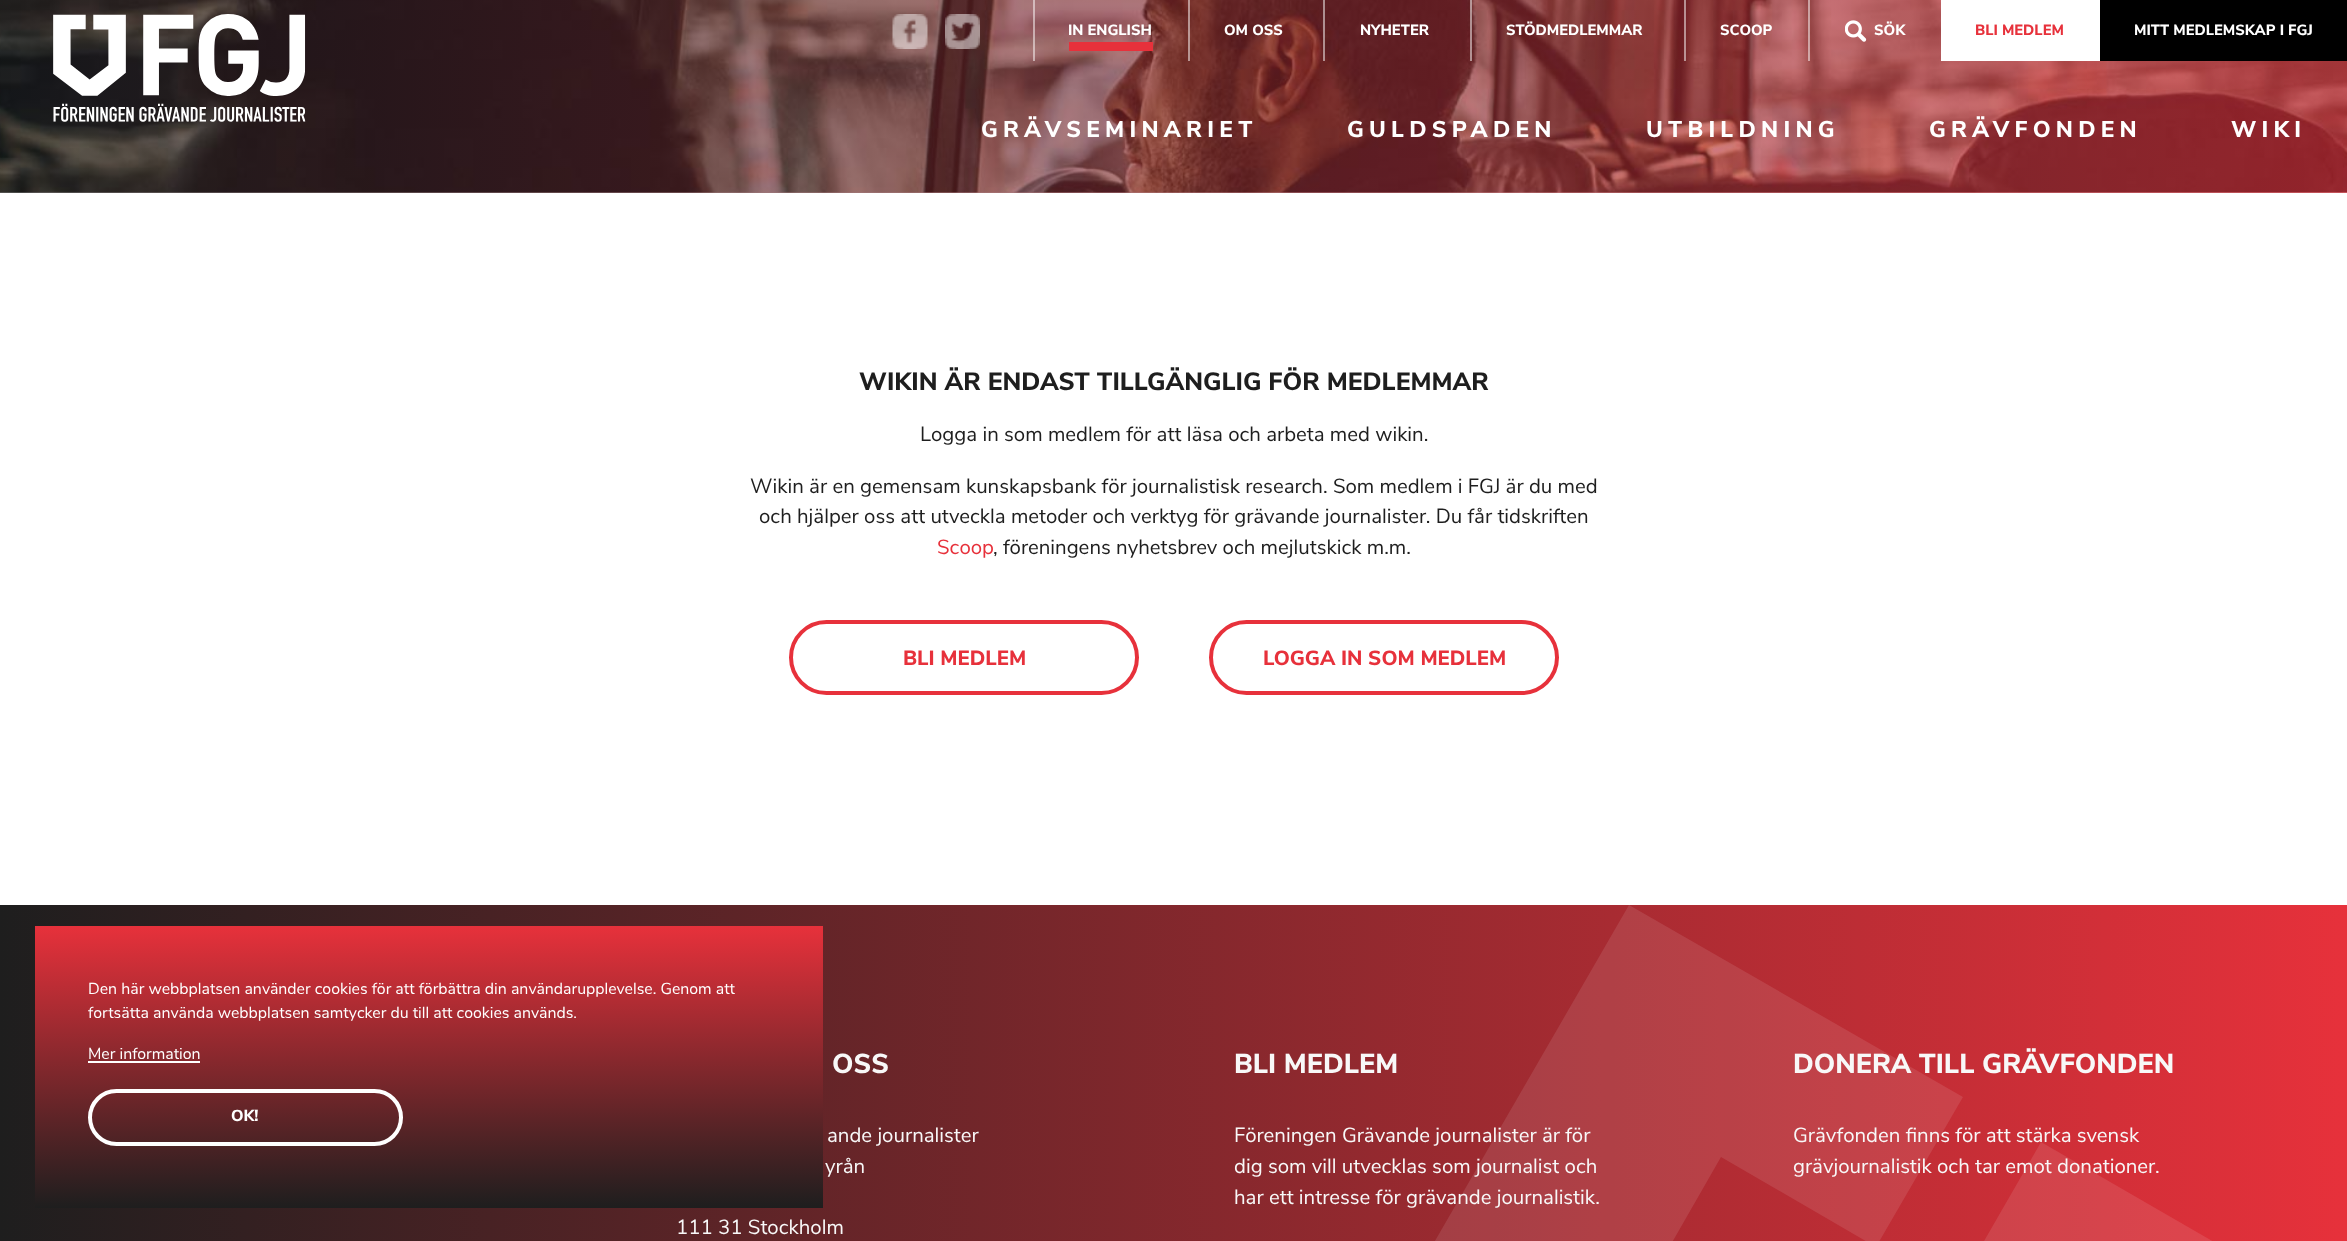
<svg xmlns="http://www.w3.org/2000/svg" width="2347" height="1241">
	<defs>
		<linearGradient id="g1" gradientUnits="userSpaceOnUse" x1="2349" y1="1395" x2="0" y2="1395"><stop offset="0" stop-color="#E7313B" /><stop offset="1" stop-color="#1E1E1E" /></linearGradient>
		<linearGradient id="g2" gradientUnits="userSpaceOnUse" x1="429" y1="926" x2="429" y2="1208"><stop offset="0" stop-color="#E7313B" /><stop offset="1" stop-color="#1E1E1E" /></linearGradient>
		<linearGradient id="g3" gradientUnits="userSpaceOnUse" x1="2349" y1="96" x2="0" y2="96"><stop offset="0" stop-color="#E7313B" stop-opacity="0.62" /><stop offset="1" stop-color="#1E1E1E" stop-opacity="0.62" /></linearGradient>
	</defs>
	<rect width="100%" height="100%" fill="#FFFFFF" />
	<rect x="0" y="905" width="2347" height="336" fill="url(#g1)" />
	<rect x="35" y="926" width="788" height="282" fill="url(#g2)" />
	<g font-family="Nunito Sans" font-size="15.9" fill="#FFFFFF">
		<text x="88" y="994">Den här webbplatsen använder cookies för att förbättra din användarupplevelse. Genom att</text>
		<text x="88" y="1018">fortsätta använda webbplatsen samtycker du till att cookies används.</text>
		<text x="88" y="1059">Mer information</text>
	</g>
	<rect x="88" y="1061" width="112" height="2" fill="#FFFFFF" />
	<rect x="90" y="1091" width="311" height="53" rx="26.5" fill="none" stroke="#FFFFFF" stroke-width="4" />
	<text x="231" y="1121" font-family="Nunito Sans" font-size="15.9" font-weight="800" fill="#FFFFFF">OK!</text>
	<image x="0" y="0" width="2347" height="193" href="assets/img5.png" />
	<rect x="0" y="0" width="2347" height="193" fill="url(#g3)" />
	<image x="53" y="14" width="253" height="108" href="assets/img1.png" />
	<image x="892" y="14" width="36" height="35" href="assets/img2.png" />
	<image x="945" y="14" width="35" height="35" href="assets/img3.png" />
	<rect x="1033" y="0" width="2" height="61" fill="#FFFFFF" fill-opacity="0.5" />
	<text x="1068" y="35" font-family="Nunito Sans" font-size="14.75" font-weight="800" fill="#FFFFFF">IN ENGLISH</text>
	<rect x="1069" y="42" width="84" height="9" fill="#E7313B" />
	<rect x="1188" y="0" width="2" height="61" fill="#FFFFFF" fill-opacity="0.5" />
	<text x="1224" y="35" font-family="Nunito Sans" font-size="14.75" font-weight="800" fill="#FFFFFF">OM OSS</text>
	<rect x="1323" y="0" width="2" height="61" fill="#FFFFFF" fill-opacity="0.5" />
	<text x="1360" y="35" font-family="Nunito Sans" font-size="14.75" font-weight="800" fill="#FFFFFF">NYHETER</text>
	<rect x="1470" y="0" width="2" height="61" fill="#FFFFFF" fill-opacity="0.5" />
	<text x="1506" y="35" font-family="Nunito Sans" font-size="14.75" font-weight="800" fill="#FFFFFF">STÖDMEDLEMMAR</text>
	<rect x="1684" y="0" width="2" height="61" fill="#FFFFFF" fill-opacity="0.5" />
	<text x="1720" y="35" font-family="Nunito Sans" font-size="14.75" font-weight="800" fill="#FFFFFF">SCOOP</text>
	<rect x="1808" y="0" width="2" height="61" fill="#FFFFFF" fill-opacity="0.5" />
	<image x="1845" y="20" width="22" height="22" href="assets/img4.png" />
	<text x="1874" y="35" font-family="Nunito Sans" font-size="14.75" font-weight="800" fill="#FFFFFF">SÖK</text>
	<rect x="1941" y="0" width="159" height="61" fill="#FFFFFF" />
	<text x="1975" y="35" font-family="Nunito Sans" font-size="14.75" font-weight="800" fill="#E7313B">BLI MEDLEM</text>
	<rect x="2100" y="0" width="247" height="61" fill="#000000" />
	<text x="2134" y="35" font-family="Nunito Sans" font-size="14.75" font-weight="800" fill="#FFFFFF">MITT MEDLEMSKAP I FGJ</text>
	<g font-family="Nunito Sans" font-size="22.75" font-weight="800" letter-spacing="5.25" fill="#FFFFFF">
		<text x="981" y="137">GRÄVSEMINARIET</text>
		<text x="1347" y="137">GULDSPADEN</text>
		<text x="1646" y="137">UTBILDNING</text>
		<text x="1929" y="137">GRÄVFONDEN</text>
		<text x="2231" y="137">WIKI</text>
	</g>
	<text x="859" y="390" font-family="Nunito Sans" font-size="25" font-weight="800" fill="#1E1E1E">WIKIN ÄR ENDAST TILLGÄNGLIG FÖR MEDLEMMAR</text>
	<g font-family="Nunito Sans" font-size="20.45" fill="#1E1E1E">
		<text x="920" y="441">Logga in som medlem för att läsa och arbeta med wikin.</text>
		<text x="750" y="493">Wikin är en gemensam kunskapsbank för journalistisk research. Som medlem i FGJ är du med</text>
		<text x="759" y="523">och hjälper oss att utveckla metoder och verktyg för grävande journalister. Du får tidskriften</text>
	</g>
	<text x="937" y="554" font-family="Nunito Sans" font-size="20.45" fill="#E7313B">Scoop</text>
	<text x="993" y="554" font-family="Nunito Sans" font-size="20.45" fill="#1E1E1E">, föreningens nyhetsbrev och mejlutskick m.m.</text>
	<rect x="791" y="622" width="346" height="71" rx="35.5" fill="none" stroke="#E7313B" stroke-width="4" />
	<text x="903" y="665" font-family="Nunito Sans" font-size="20.45" font-weight="800" fill="#E7313B">BLI MEDLEM</text>
	<rect x="1211" y="622" width="346" height="71" rx="35.5" fill="none" stroke="#E7313B" stroke-width="4" />
	<text x="1263" y="665" font-family="Nunito Sans" font-size="20.45" font-weight="800" fill="#E7313B">LOGGA IN SOM MEDLEM</text>
	<path d="M2041 1142L1953 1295L2107 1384L1896 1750L1619 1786L1513 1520L1721 1157L1876 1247L1963 1097L1629 905L1279 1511L1446 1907L1603 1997L2031 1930L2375 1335L2041 1142" fill="#FFFFFF" fill-opacity="0.1" />
	<text x="832" y="1073" font-family="Nunito Sans" font-size="27.25" font-weight="800" fill="#F8F8F8">OSS</text>
	<g font-family="Nunito Sans" font-size="20.45" fill="#F8F8F8">
		<text x="827" y="1142">ande journalister</text>
		<text x="825" y="1173">yrån</text>
		<text x="676" y="1234">111 31 Stockholm</text>
	</g>
	<text x="1234" y="1073" font-family="Nunito Sans" font-size="27.25" font-weight="800" fill="#F8F8F8">BLI MEDLEM</text>
	<g font-family="Nunito Sans" font-size="20.45" fill="#F8F8F8">
		<text x="1234" y="1142">Föreningen Grävande journalister är för</text>
		<text x="1234" y="1173">dig som vill utvecklas som journalist och</text>
		<text x="1234" y="1204">har ett intresse för grävande journalistik.</text>
	</g>
	<text x="1793" y="1073" font-family="Nunito Sans" font-size="27.25" font-weight="800" fill="#F8F8F8">DONERA TILL GRÄVFONDEN</text>
	<g font-family="Nunito Sans" font-size="20.45" fill="#F8F8F8">
		<text x="1793" y="1142">Grävfonden finns för att stärka svensk</text>
		<text x="1793" y="1173">grävjournalistik och tar emot donationer.</text>
	</g>
</svg>
